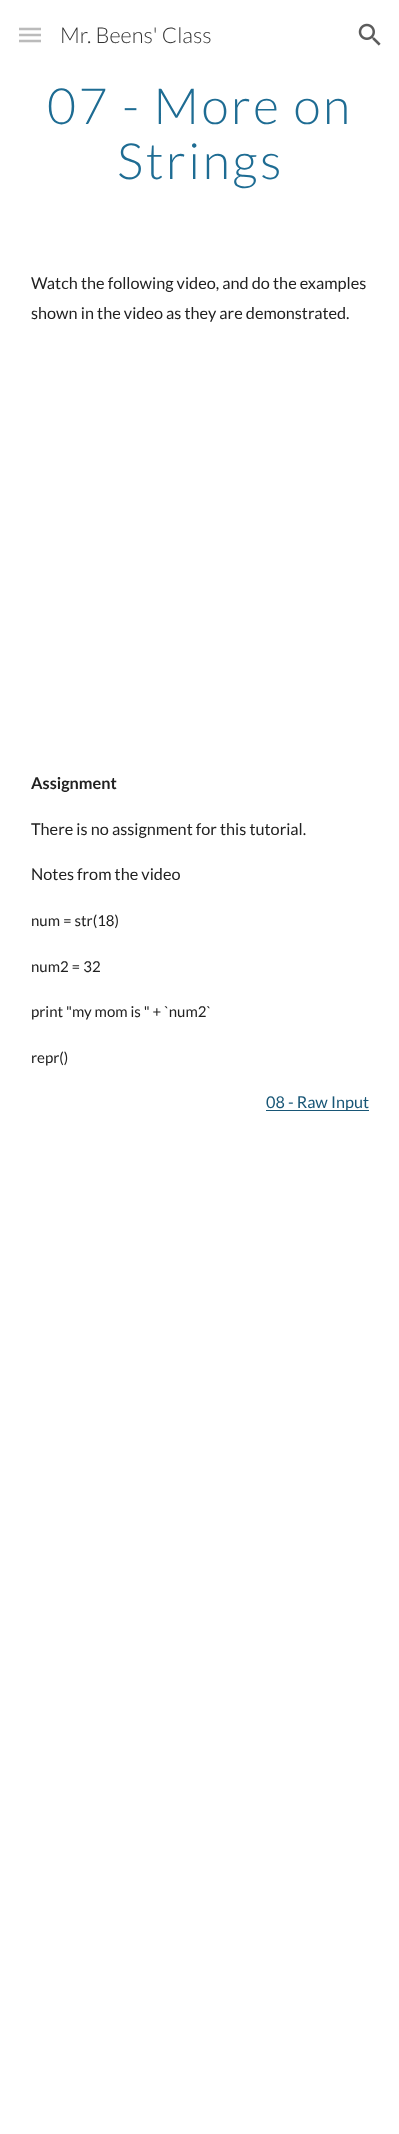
<svg xmlns="http://www.w3.org/2000/svg" width="399" height="2134">
	<rect width="100%" height="100%" fill="#FFFFFF" />
	<path d="M19 29H41M19 35H41M19 41H41" fill="none" stroke="#B2B2B2" stroke-width="2.5" />
	<rect x="19" y="28" width="22" height="14" fill="#FFFFFF" fill-opacity="0.12" />
	<text x="60" y="43" font-family="Lato" font-size="21.75" font-weight="300" fill="#333333">Mr. Beens' Class</text>
	<image x="358" y="23" width="23" height="23" href="assets/img1.png" />
	<g font-family="Lato" font-size="50" font-weight="300" letter-spacing="2.5" fill="#1E6C93">
		<text x="47" y="124">07 - More on</text>
		<text x="117" y="179">Strings</text>
	</g>
	<g font-family="Lato" font-size="16.25" fill="#212121">
		<text x="31" y="289">Watch the following video, and do the examples</text>
		<text x="31" y="319">shown in the video as they are demonstrated.</text>
	</g>
	<text x="31" y="789" font-family="Lato" font-size="16.25" font-weight="700" fill="#212121">Assignment</text>
	<g font-family="Lato" font-size="16.25" fill="#212121">
		<text x="31" y="835">There is no assignment for this tutorial.</text>
		<text x="31" y="880">Notes from the video</text>
	</g>
	<g font-family="Lato" font-size="15" fill="#212121">
		<text x="31" y="926">num = str(18)</text>
		<text x="31" y="972">num2 = 32</text>
		<text x="31" y="1017">print "my mom is " + `num2`</text>
		<text x="31" y="1063">repr()</text>
	</g>
	<rect x="266" y="1110" width="103" height="1" fill="#185676" />
	<text x="266" y="1108" font-family="Lato" font-size="16.25" fill="#185676">08 - Raw Input</text>
</svg>
